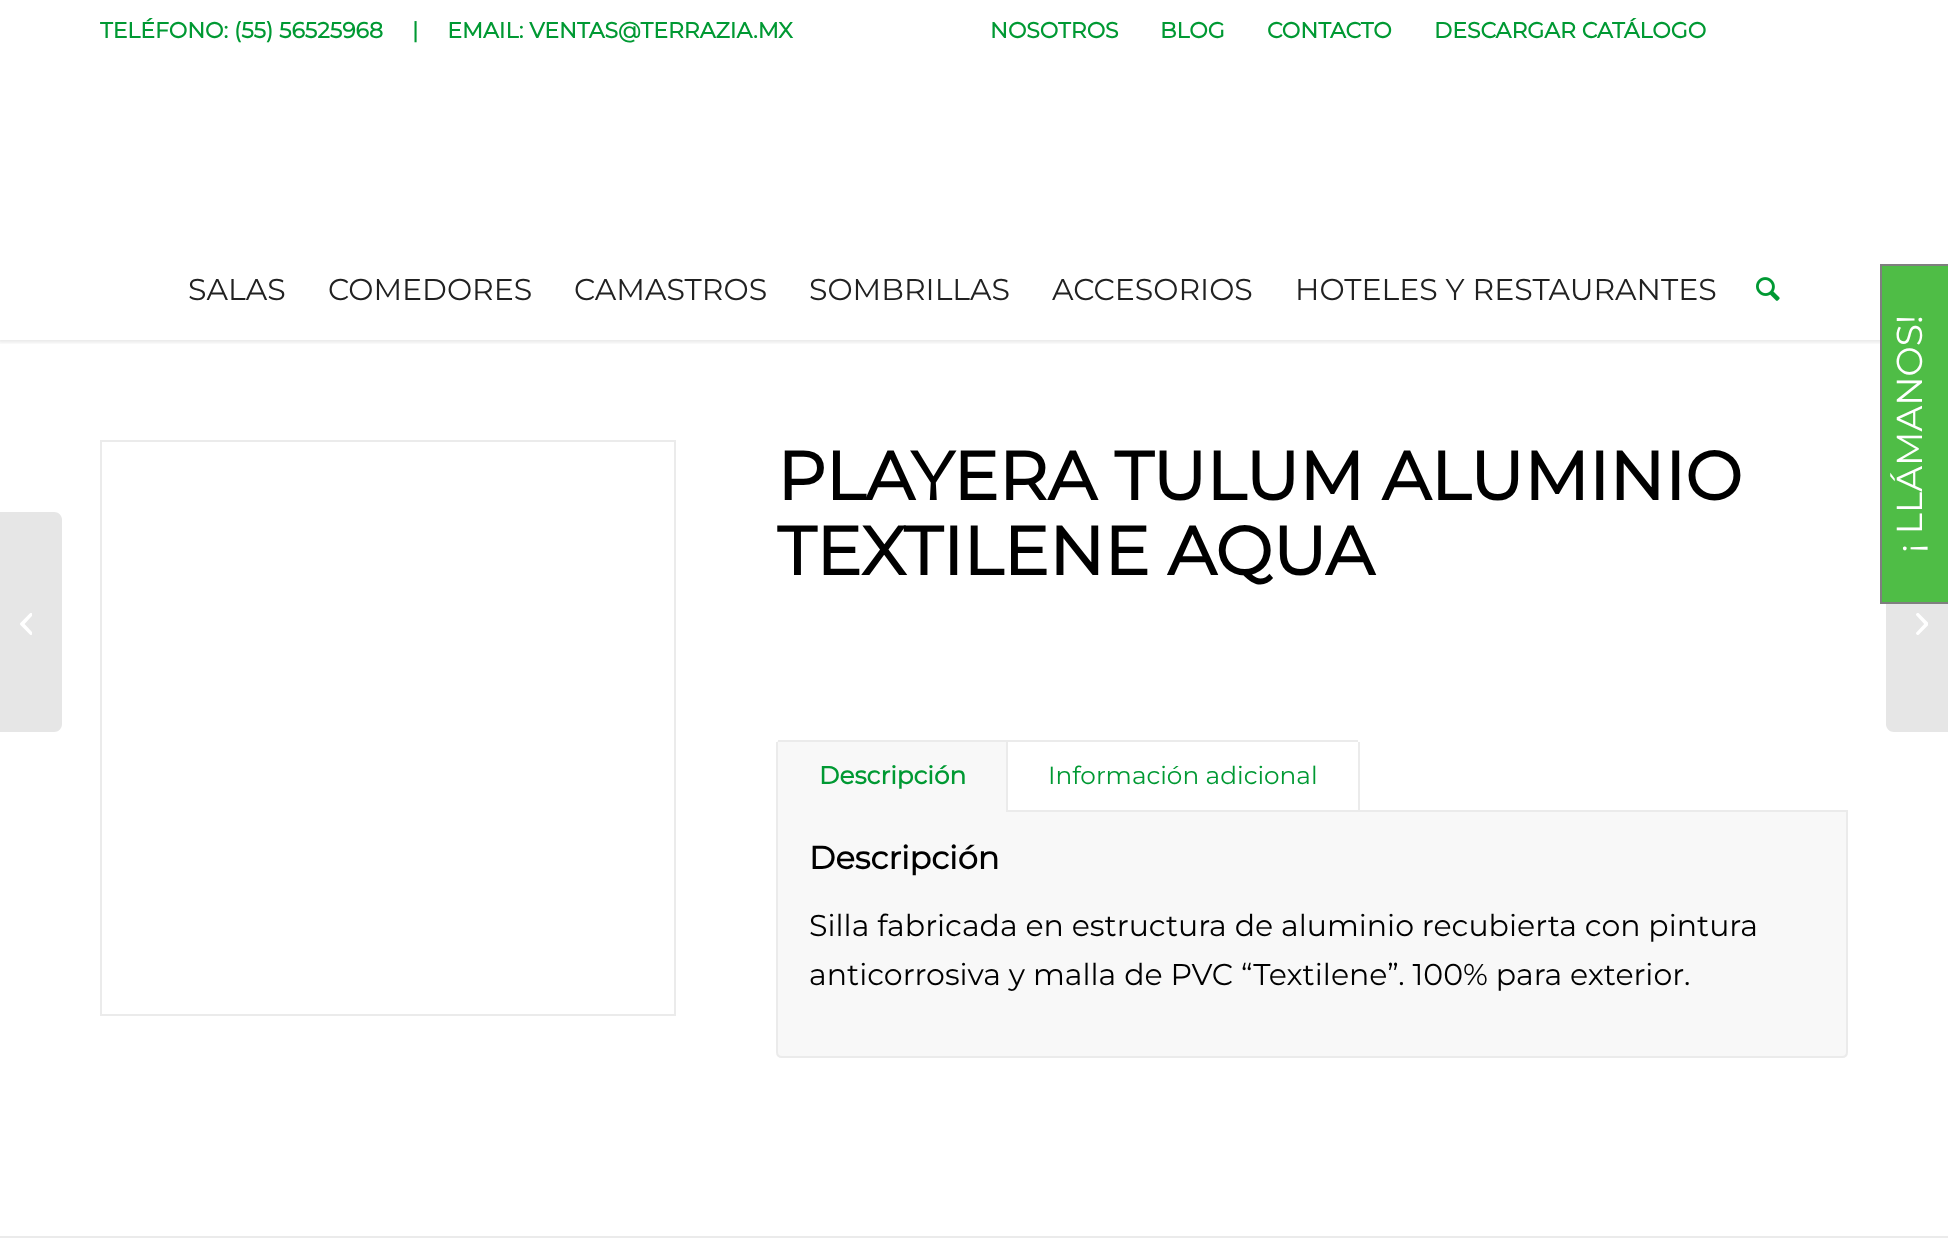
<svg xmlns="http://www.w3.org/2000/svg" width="1948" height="1242">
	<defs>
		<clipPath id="clip1"><rect x="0" y="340" width="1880" height="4" /></clipPath>
	</defs>
	<rect width="100%" height="100%" fill="#FFFFFF" />
	<g clip-path="url(#clip1)">
		<rect x="-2" y="-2" width="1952" height="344" fill="#000000" fill-opacity="0.1" filter="blur(2px)" />
	</g>
	<g font-family="Montserrat" font-size="22" font-weight="700" fill="#009933">
		<text x="100" y="38">TELÉFONO: (55) 56525968</text>
		<text x="412" y="38" xml:space="preserve">|     EMAIL: VENTAS@TERRAZIA.MX</text>
		<text x="990" y="38">NOSOTROS</text>
		<text x="1160" y="38">BLOG</text>
		<text x="1267" y="38">CONTACTO</text>
		<text x="1434" y="38">DESCARGAR CATÁLOGO</text>
	</g>
	<g font-family="Montserrat" font-size="30" font-weight="100" fill="#212121">
		<text x="188" y="300">SALAS</text>
		<text x="328" y="300">COMEDORES</text>
		<text x="574" y="300">CAMASTROS</text>
		<text x="809" y="300">SOMBRILLAS</text>
		<text x="1052" y="300">ACCESORIOS</text>
		<text x="1295" y="300">HOTELES Y RESTAURANTES</text>
	</g>
	<image x="1756" y="277" width="24" height="24" href="assets/img1.png" />
	<path d="M0 512H54C58.5 512 62 515.5 62 520V724C62 728.5 58.5 732 54 732H0Z" fill="#E6E6E6" />
	<image x="20" y="613" width="12" height="22" href="assets/img2.png" />
	<rect x="101" y="441" width="574" height="574" fill="none" stroke="#EBEBEB" stroke-width="2" />
	<g font-family="Montserrat" font-size="68" font-weight="700" fill="#000000">
		<text x="777" y="500">PLAYERA TULUM ALUMINIO</text>
		<text x="777" y="575">TEXTILENE AQUA</text>
	</g>
	<path d="M777 811H1847V1052C1847 1055 1845 1057 1842 1057H782C779 1057 777 1055 777 1052Z" fill="#F8F8F8" stroke="#EBEBEB" stroke-width="2" />
	<path d="M780 740H1008V812H776V744C776 742 778 740 780 740Z" fill="#F8F8F8" />
	<rect x="778" y="740" width="230" height="2" fill="#EBEBEB" />
	<rect x="1006" y="740" width="2" height="72" fill="#EBEBEB" />
	<rect x="776" y="742" width="2" height="70" fill="#EBEBEB" />
	<text x="819" y="784" font-family="Montserrat" font-size="24.75" font-weight="700" fill="#009933">Descripción</text>
	<rect x="1006" y="740" width="352" height="2" fill="#EBEBEB" />
	<rect x="1358" y="742" width="2" height="70" fill="#EBEBEB" />
	<text x="1048" y="784" font-family="Montserrat" font-size="24.75" font-weight="100" fill="#009933">Información adicional</text>
	<text x="809" y="869" font-family="Montserrat" font-size="32" font-weight="700" fill="#000000">Descripción</text>
	<g font-family="Montserrat" font-size="30" font-weight="100" fill="#000000">
		<text x="809" y="936">Silla fabricada en estructura de aluminio recubierta con pintura</text>
		<text x="809" y="985">anticorrosiva y malla de PVC “Textilene”. 100% para exterior.</text>
	</g>
	<rect x="0" y="1236" width="1948" height="2" fill="#EBEBEB" />
	<path d="M1894 512H1948V732H1894C1889.5 732 1886 728.5 1886 724V520C1886 515.5 1889.5 512 1894 512Z" fill="#E6E6E6" />
	<image x="1916" y="613" width="12" height="22" href="assets/img3.png" />
	<rect x="1882" y="266" width="66" height="336" fill="#4FBD46" />
	<rect x="1880" y="264" width="2" height="340" fill="#7F7F7F" />
	<rect x="1880" y="264" width="68" height="2" fill="#7F7F7F" />
	<rect x="1880" y="602" width="68" height="2" fill="#7F7F7F" />
	<text x="1922" y="553" transform="rotate(-90 1922 553)" font-family="Montserrat" font-size="36" font-weight="100" fill="#FFFFFF">¡ LLÁMANOS!</text>
</svg>
